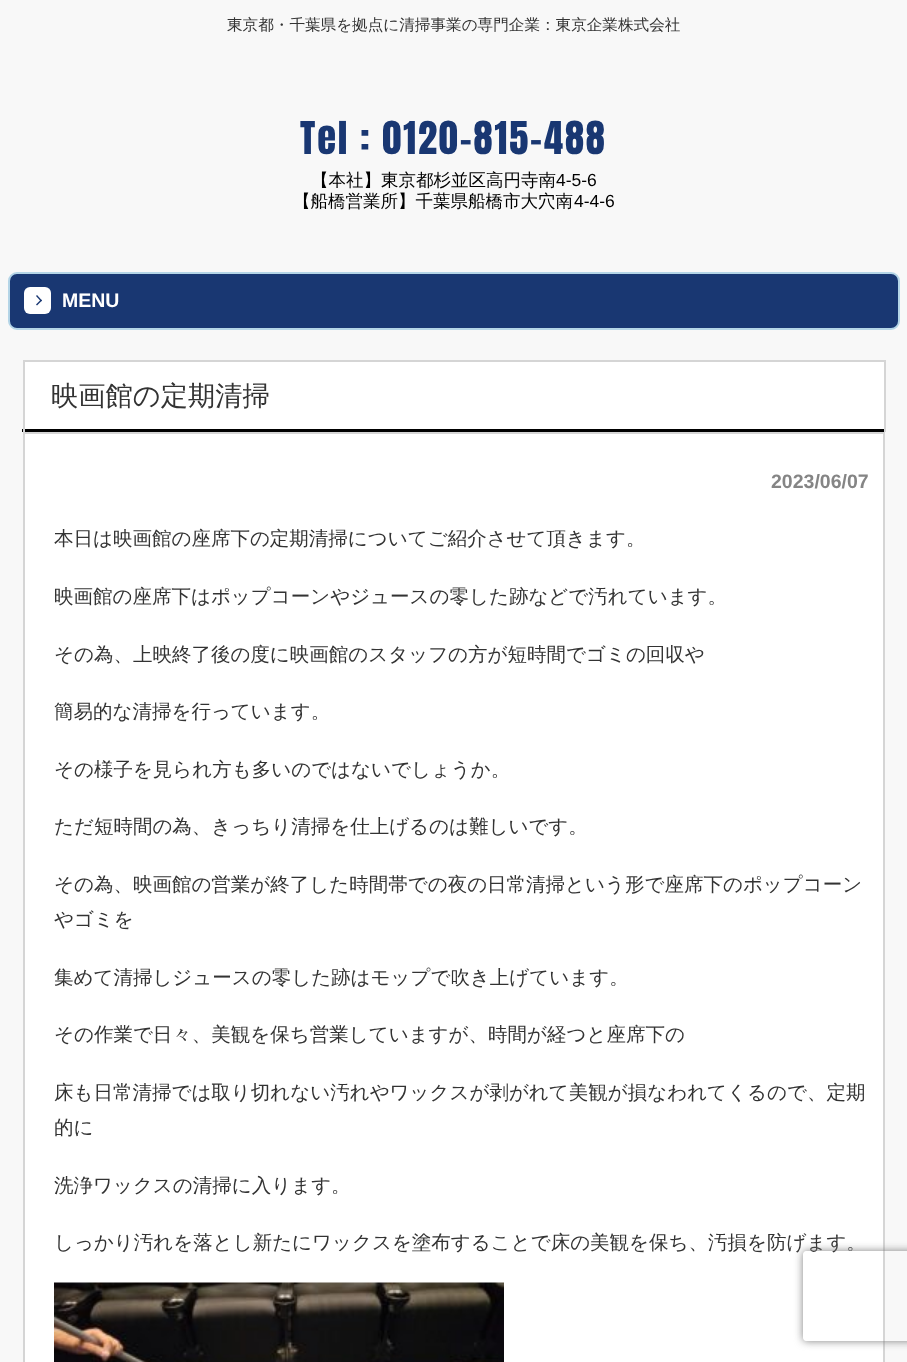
<svg xmlns="http://www.w3.org/2000/svg" width="907" height="1362">
	<defs>
		<clipPath id="clip1"><path d="M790 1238H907V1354H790ZM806 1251H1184C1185.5 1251 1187 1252.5 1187 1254V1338C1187 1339.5 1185.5 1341 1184 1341H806C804.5 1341 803 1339.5 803 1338V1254C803 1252.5 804.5 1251 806 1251Z" clip-rule="evenodd" /></clipPath>
	</defs>
	<rect width="100%" height="100%" fill="#F8F8F8" />
	<text x="227" y="30" font-family="WenQuanYi Zen Hei" font-size="15.6" font-weight="500" fill="#333333">東京都・千葉県を拠点に清掃事業の専門企業：東京企業株式会社</text>
	<text x="300" y="154" font-family="Anton" font-size="38.5" letter-spacing="1.9" fill="#193772">Tel : 0120-815-488</text>
	<text x="311" y="186" font-family="WenQuanYi Zen Hei" font-size="17.5" font-weight="500" fill="#000000">【本社】東京都杉並区高円寺南</text>
	<text x="556" y="186" font-family="Liberation Sans" font-size="17.5" fill="#000000">4-5-6</text>
	<text x="293" y="207" font-family="WenQuanYi Zen Hei" font-size="17.5" font-weight="500" fill="#000000">【船橋営業所】千葉県船橋市大穴南</text>
	<text x="574" y="207" font-family="Liberation Sans" font-size="17.5" fill="#000000">4-4-6</text>
	<rect x="9" y="273" width="890" height="56" rx="8" fill="#193772" stroke="#B4D5E7" stroke-width="2" />
	<rect x="24" y="287" width="27" height="27" rx="6" fill="#FFFFFF" />
	<text x="62" y="307" font-family="Liberation Sans" font-size="19.5" font-weight="700" fill="#FFFFFF">MENU</text>
	<path d="M37 295L42 300.5L41 301.5L36 296Z" fill="#193772" />
	<path d="M41 299.5L42 300.5L37 305.5L36 304.5Z" fill="#193772" />
	<rect x="25" y="362" width="859" height="67" fill="#FFFFFF" />
	<rect x="22" y="429" width="863" height="3" fill="#000000" />
	<rect x="23" y="360" width="862" height="2" fill="#D5D5D5" />
	<rect x="884" y="360" width="2" height="72" fill="#D5D5D5" />
	<rect x="23" y="360" width="2" height="72" fill="#D5D5D5" />
	<text x="51" y="405" font-family="WenQuanYi Zen Hei" font-size="27.25" font-weight="500" fill="#333333">映画館の定期清掃</text>
	<rect x="24" y="433" width="860" height="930" fill="#FFFFFF" stroke="#D5D5D5" stroke-width="2" />
	<text x="771" y="488" font-family="Liberation Sans" font-size="19.5" font-weight="700" fill="#858585">2023/06/07</text>
	<g font-family="WenQuanYi Zen Hei" font-size="19.5" font-weight="500" fill="#333333">
		<text x="54" y="545">本日は映画館の座席下の定期清掃についてご紹介させて頂きます。</text>
		<text x="54" y="603">映画館の座席下はポップコーンやジュースの零した跡などで汚れています。</text>
		<text x="54" y="661">その為、上映終了後の度に映画館のスタッフの方が短時間でゴミの回収や</text>
		<text x="54" y="718">簡易的な清掃を行っています。</text>
		<text x="54" y="776">その様子を見られ方も多いのではないでしょうか。</text>
		<text x="54" y="833">ただ短時間の為、きっちり清掃を仕上げるのは難しいです。</text>
		<text x="54" y="891">その為、映画館の営業が終了した時間帯での夜の日常清掃という形で座席下のポップコーン</text>
		<text x="54" y="926">やゴミを</text>
		<text x="54" y="984">集めて清掃しジュースの零した跡はモップで吹き上げています。</text>
		<text x="54" y="1041">その作業で日々、美観を保ち営業していますが、時間が経つと座席下の</text>
		<text x="54" y="1099">床も日常清掃では取り切れない汚れやワックスが剥がれて美観が損なわれてくるので、定期</text>
		<text x="54" y="1134">的に</text>
		<text x="54" y="1192">洗浄ワックスの清掃に入ります。</text>
		<text x="54" y="1249">しっかり汚れを落とし新たにワックスを塗布することで床の美観を保ち、汚損を防げます。</text>
	</g>
	<image x="54" y="1282" width="450" height="80" href="assets/img1.png" />
	<g clip-path="url(#clip1)">
		<rect x="803" y="1251" width="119" height="90" rx="3" fill="#808080" filter="blur(4px)" />
	</g>
</svg>
